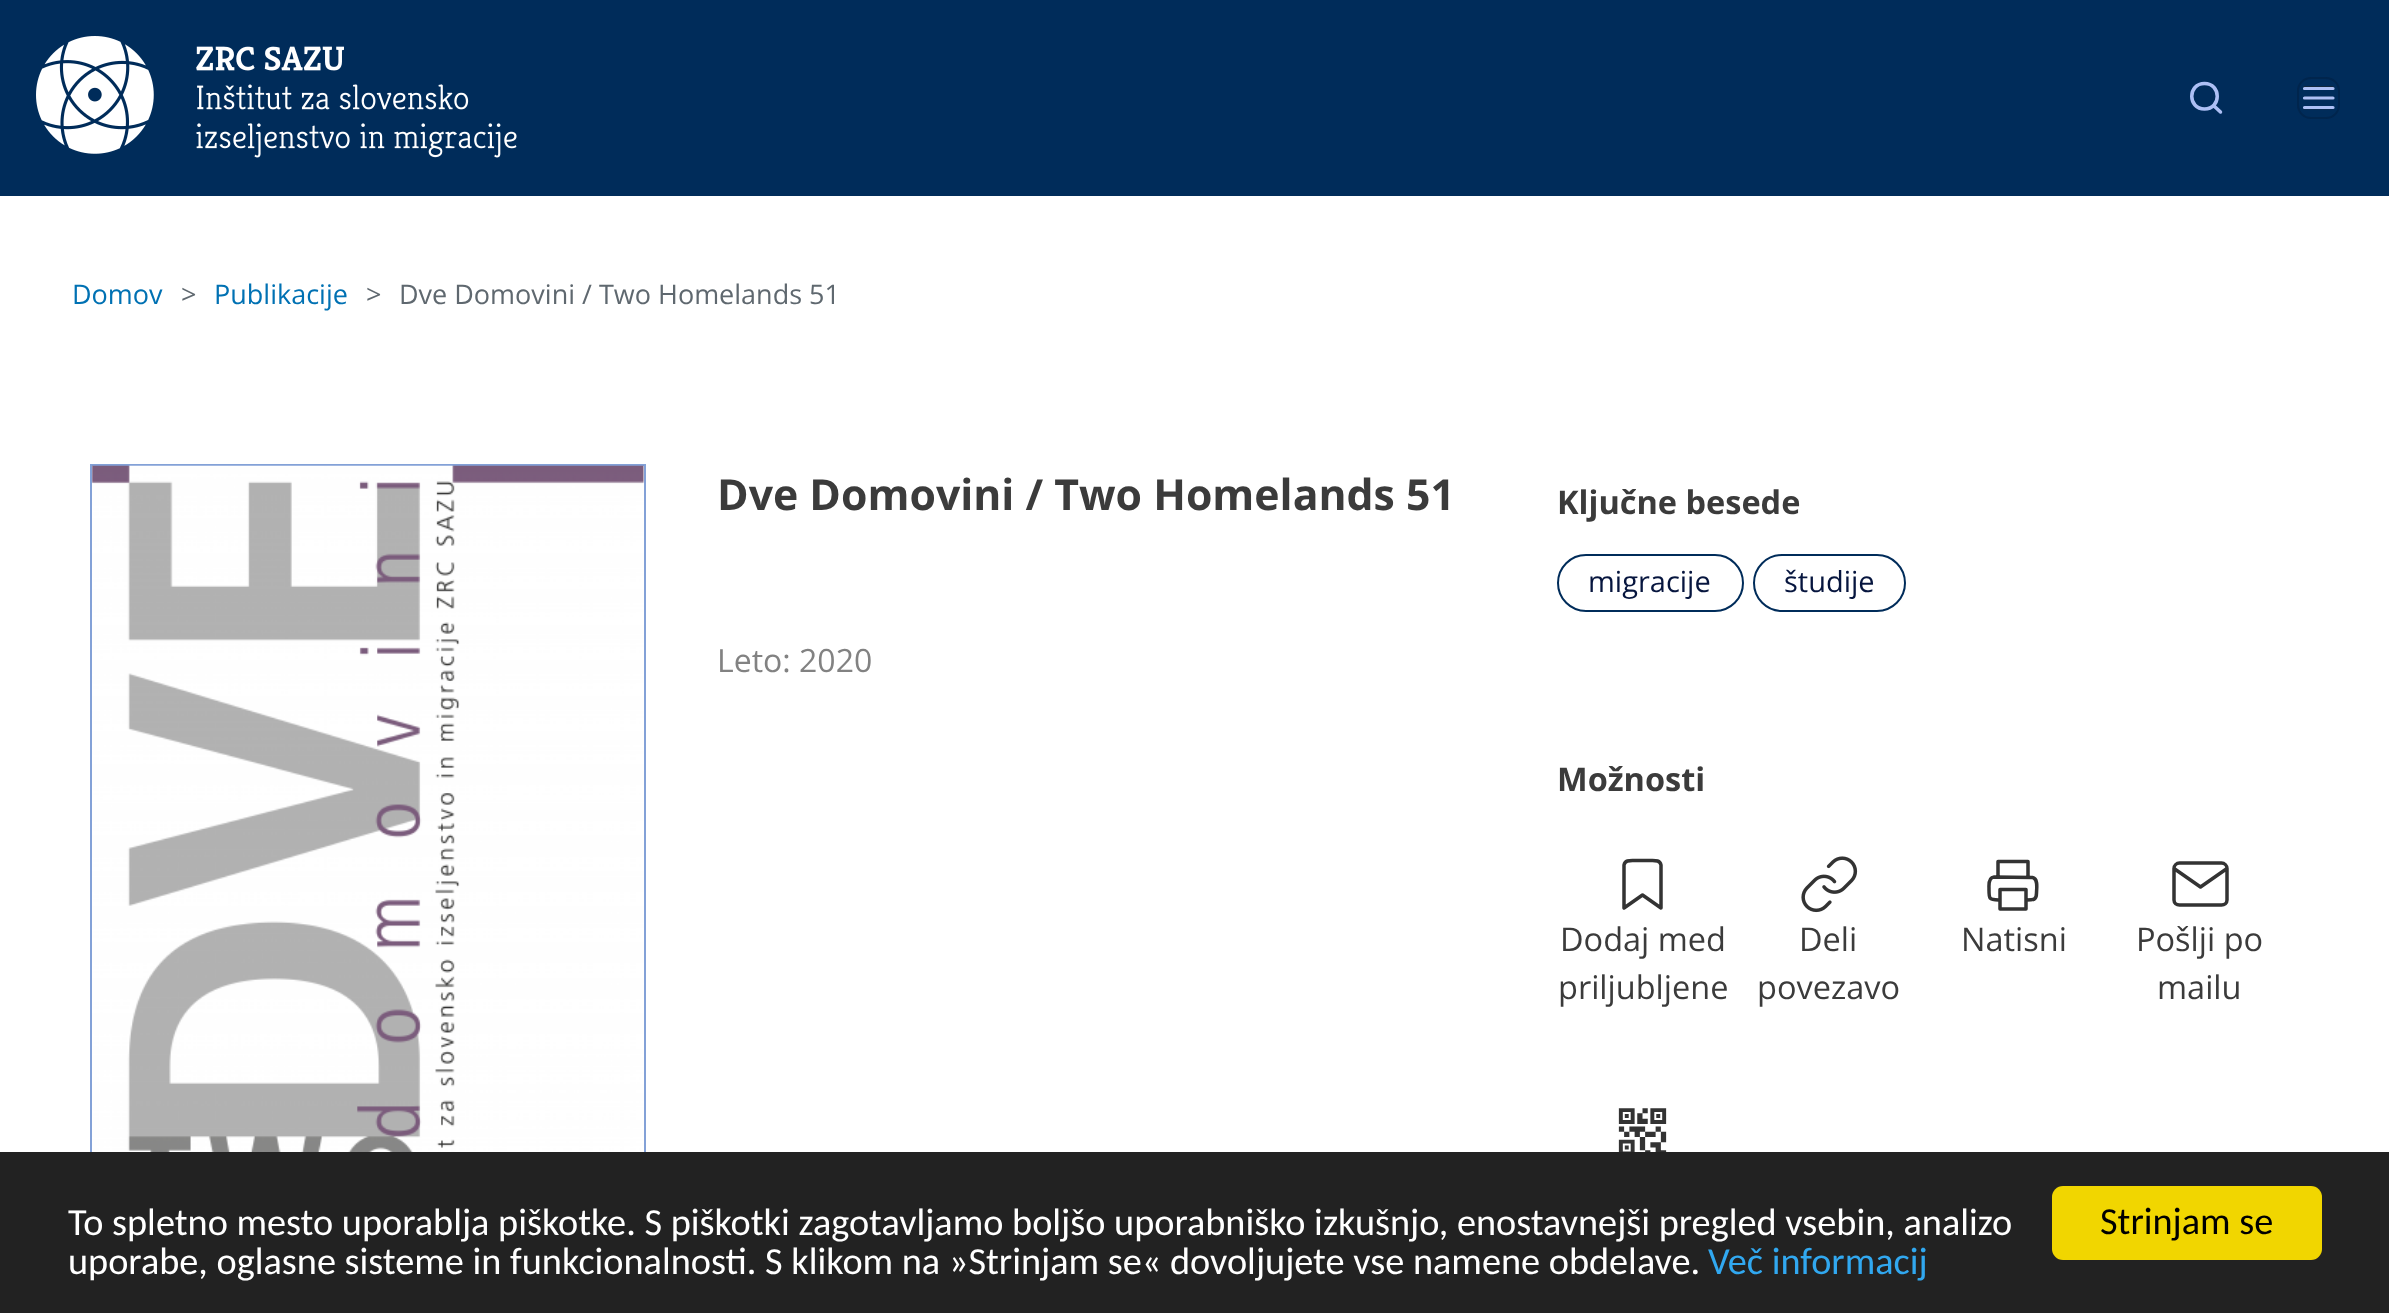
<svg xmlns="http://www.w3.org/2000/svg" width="2389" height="1313">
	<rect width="100%" height="100%" fill="#FFFFFF" />
	<rect x="0" y="0" width="2389" height="196" fill="#002C5A" />
	<image x="36" y="36" width="481" height="122" href="assets/img1.png" />
	<path d="M2204.5 109C2221.5 109 2221.5 83.5 2204.5 83.5C2187.5 83.5 2187.5 109 2204.5 109ZM2220.5 112L2213.5 105.5" fill="none" stroke="#ADC0F5" stroke-width="3.5" stroke-linecap="round" stroke-linejoin="round" />
	<rect x="2298" y="78" width="41" height="40" rx="13" fill="none" stroke="#00254D" stroke-width="2" />
	<path d="M2304.5 87.5H2332.5M2304.5 98H2332.5M2304.5 108H2332.5" fill="none" stroke="#192735" stroke-width="2.5" stroke-linecap="round" />
	<path d="M2304.5 98H2333M2304.5 88.5H2333M2304.5 107.5H2333" fill="none" stroke="#ADC0F5" stroke-width="3.2" stroke-linecap="round" stroke-linejoin="round" />
	<text x="72" y="304" font-family="Open Sans" font-size="27" fill="#0071B3">Domov</text>
	<text x="181" y="304" font-family="Open Sans" font-size="27" fill="#5F686F">&gt;</text>
	<text x="214" y="304" font-family="Open Sans" font-size="27" fill="#0071B3">Publikacije</text>
	<g font-family="Open Sans" font-size="27" fill="#5F686F">
		<text x="366" y="304">&gt;</text>
		<text x="399" y="304">Dve Domovini / Two Homelands 51</text>
	</g>
	<rect x="91" y="465" width="554" height="785" fill="none" stroke="#83A1D7" stroke-width="2" />
	<image x="92" y="465" width="552" height="687" href="assets/img2.png" />
	<text x="717" y="510" font-family="Open Sans" font-size="42.75" font-weight="700" fill="#3B3B3B">Dve Domovini / Two Homelands 51</text>
	<text x="717" y="672" font-family="Open Sans" font-size="32" fill="#828282">Leto: 2020</text>
	<text x="1557" y="514" font-family="Open Sans" font-size="32.5" font-weight="700" fill="#3B3B3B">Ključne besede</text>
	<rect x="1558" y="555" width="185" height="56" rx="28" fill="none" stroke="#002C5A" stroke-width="2" />
	<text x="1588" y="592" font-family="Open Sans" font-size="29" fill="#06153E">migracije</text>
	<rect x="1754" y="555" width="151" height="56" rx="28" fill="none" stroke="#002C5A" stroke-width="2" />
	<text x="1784" y="592" font-family="Open Sans" font-size="29" fill="#06153E">študije</text>
	<text x="1557" y="791" font-family="Open Sans" font-size="32.5" font-weight="700" fill="#3B3B3B">Možnosti</text>
	<path d="M1661 908L1642.5 895L1624 908V865C1625 860 1630 860.5 1634 860.5H1651C1655 860.5 1660 860 1661 865Z" fill="none" stroke="#333333" stroke-width="3.5" stroke-linecap="round" stroke-linejoin="round" />
	<g font-family="Open Sans" font-size="32.5" fill="#3B3B3B">
		<text x="1560" y="951">Dodaj med</text>
		<text x="1558" y="999">priljubljene</text>
	</g>
	<image x="1801" y="856" width="57" height="57" href="assets/img3.png" />
	<g font-family="Open Sans" font-size="32.5" fill="#3B3B3B">
		<text x="1799" y="951">Deli</text>
		<text x="1757" y="999">povezavo</text>
	</g>
	<path d="M1998 877V861.5H2028V877M1998.5 900C1988.5 900 1989 898.5 1989 888.5C1989 885 1988 877.5 1994 877L2032.5 877.5C2038.5 878.5 2036.5 889 2036.5 893C2036.5 900 2033.5 900 2027 900M2026 889.5H2000V909H2026Z" fill="none" stroke="#333333" stroke-width="3.5" stroke-linecap="round" stroke-linejoin="round" />
	<text x="1961" y="951" font-family="Open Sans" font-size="32.5" fill="#3B3B3B">Natisni</text>
	<path d="M2179.5 863H2221.5C2224.5 863 2227 865.5 2227 868.5V900C2227 903 2224.5 905 2221.5 905H2179.5C2176.5 905 2174 903 2174 900V868.5C2174 865.5 2176.5 863 2179.5 863ZM2227 868.5L2200.5 887L2174 868.5" fill="none" stroke="#333333" stroke-width="3.5" stroke-linecap="round" stroke-linejoin="round" />
	<g font-family="Open Sans" font-size="32.5" fill="#3B3B3B">
		<text x="2136" y="951">Pošlji po</text>
		<text x="2157" y="999">mailu</text>
	</g>
	<image x="1618" y="1108" width="49" height="44" href="assets/img4.png" />
	<rect x="0" y="1152" width="2389" height="161" fill="#222222" />
	<g font-family="Carlito" font-size="38.25" fill="#FFFFFF">
		<text x="68" y="1235">To spletno mesto uporablja piškotke. S piškotki zagotavljamo boljšo uporabniško izkušnjo, enostavnejši pregled vsebin, analizo</text>
		<text x="68" y="1274">uporabe, oglasne sisteme in funkcionalnosti. S klikom na »Strinjam se« dovoljujete vse namene obdelave.</text>
	</g>
	<text x="1708" y="1274" font-family="Carlito" font-size="38.25" fill="#31A8F0">Več informacij</text>
	<rect x="2052" y="1186" width="270" height="74" rx="11" fill="#F1D600" />
	<text x="2100" y="1234" font-family="Carlito" font-size="38.25" fill="#000000">Strinjam se</text>
</svg>
